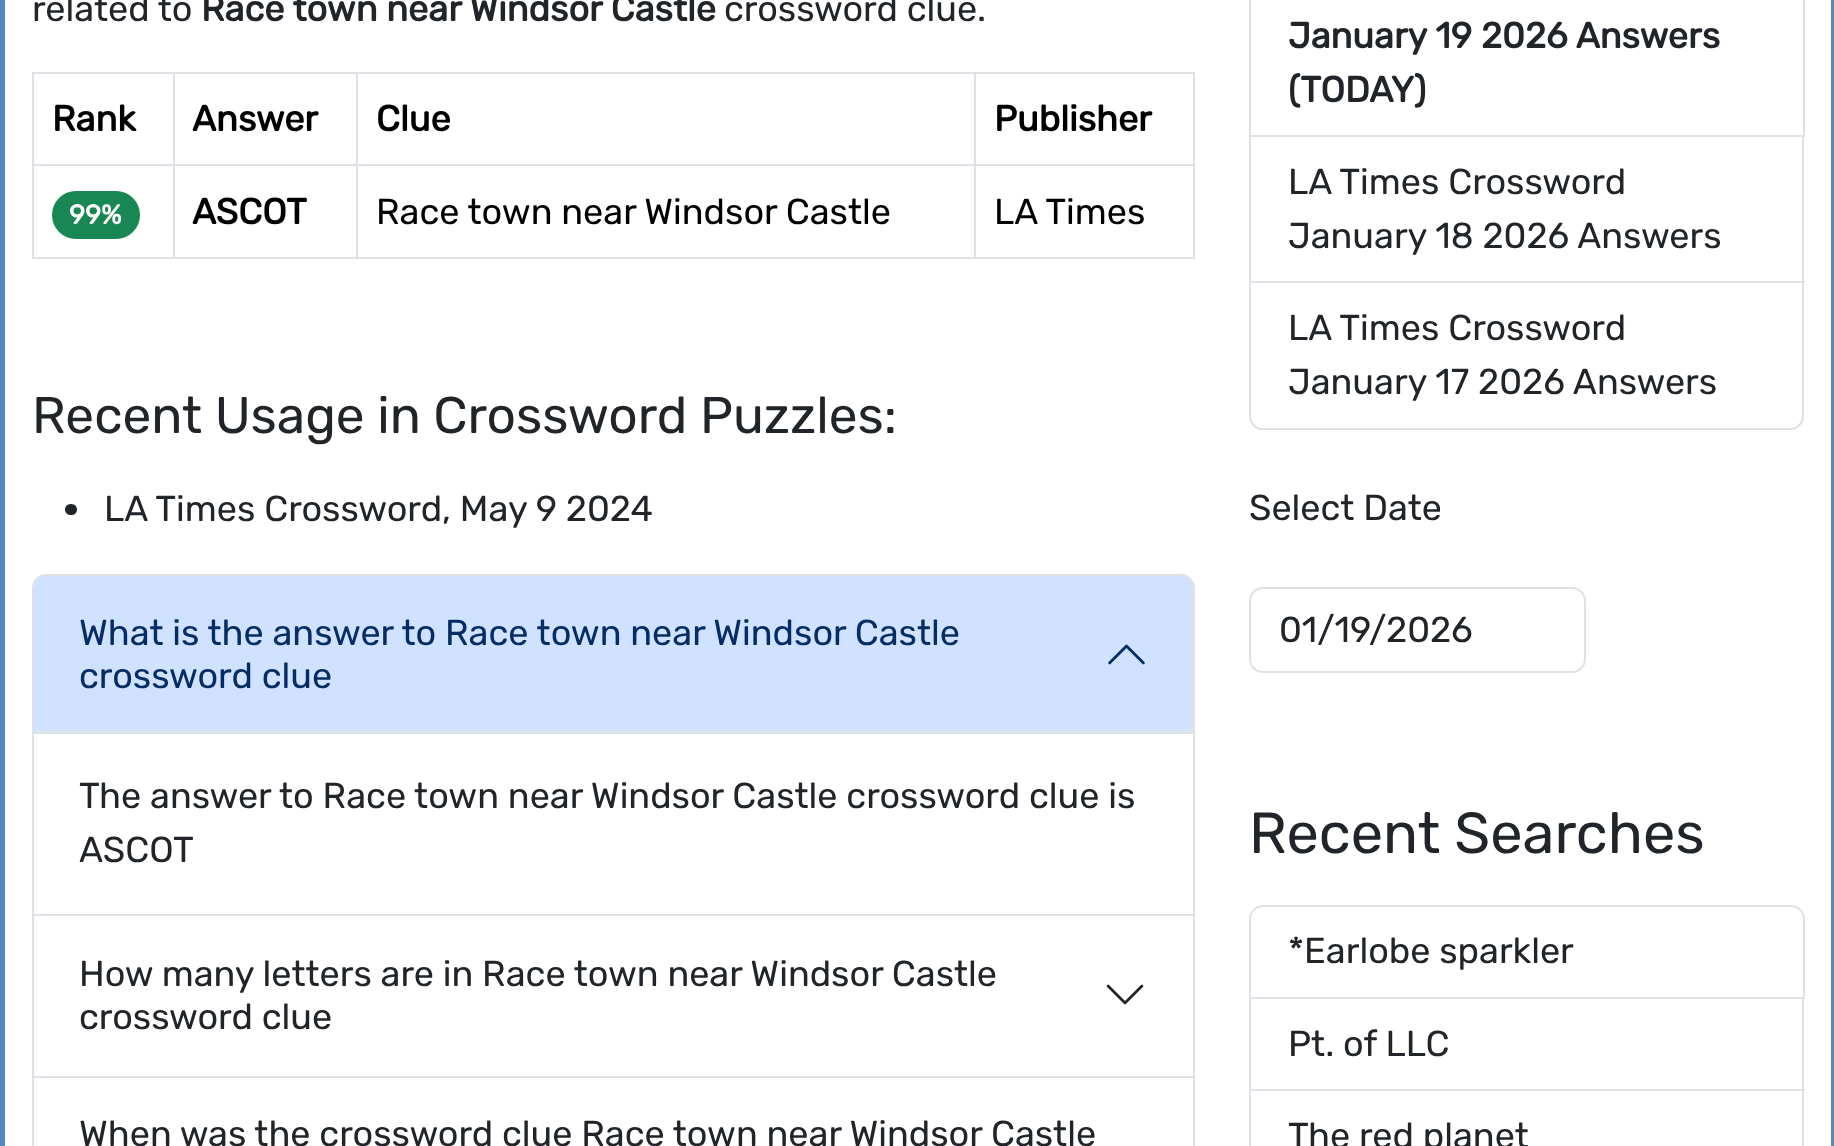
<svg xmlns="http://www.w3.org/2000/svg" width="1834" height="1146">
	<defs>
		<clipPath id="clip1"><rect x="1249" y="482" width="191" height="54" /></clipPath>
	</defs>
	<rect width="100%" height="100%" fill="#FFFFFF" />
	<rect x="2.5" y="-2.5" width="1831" height="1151" fill="none" stroke="#5589C0" stroke-width="5" />
	<text x="32" y="21" font-family="Rubik" font-size="36" font-weight="300" fill="#212529">related to</text>
	<text x="201" y="21" font-family="Rubik" font-size="36" font-weight="700" fill="#212529">Race town near Windsor Castle</text>
	<text x="724" y="21" font-family="Rubik" font-size="36" font-weight="300" fill="#212529">crossword clue.</text>
	<rect x="32" y="72" width="1163" height="2" fill="#DEE2E6" />
	<g font-family="Rubik" font-size="36" font-weight="700" fill="#000000">
		<text x="52" y="131">Rank</text>
		<text x="192" y="131">Answer</text>
		<text x="376" y="131">Clue</text>
		<text x="994" y="131">Publisher</text>
	</g>
	<rect x="32" y="164" width="1163" height="2" fill="#DEE2E6" />
	<rect x="32" y="257" width="1163" height="2" fill="#DEE2E6" />
	<rect x="32" y="72" width="2" height="187" fill="#DEE2E6" />
	<rect x="52" y="191" width="88" height="48" rx="24" fill="#198754" />
	<text x="69" y="224" font-family="Rubik" font-size="27" font-weight="700" fill="#FFFFFF">99%</text>
	<rect x="173" y="72" width="2" height="187" fill="#DEE2E6" />
	<text x="192" y="224" font-family="Rubik" font-size="36" font-weight="700" fill="#000000">ASCOT</text>
	<rect x="356" y="72" width="2" height="187" fill="#DEE2E6" />
	<text x="376" y="224" font-family="Rubik" font-size="36" font-weight="300" fill="#000000">Race town near Windsor Castle</text>
	<rect x="1193" y="72" width="2" height="187" fill="#DEE2E6" />
	<rect x="974" y="72" width="2" height="187" fill="#DEE2E6" />
	<text x="994" y="224" font-family="Rubik" font-size="36" font-weight="300" fill="#000000">LA Times</text>
	<text x="32" y="433" font-family="Rubik" font-size="51.4" font-weight="300" fill="#212529">Recent Usage in Crossword Puzzles:</text>
	<rect x="65" y="504" width="12" height="11" rx="5.5" fill="#212529" />
	<text x="104" y="521" font-family="Rubik" font-size="36" font-weight="300" fill="#212529">LA Times Crossword, May 9 2024</text>
	<path d="M46 575H1181C1188 575 1194 581 1194 588V915H33V588C33 581 39 575 46 575Z" fill="none" stroke="#DEE2E6" stroke-width="2" />
	<path d="M45 576H1182C1188 576 1193 581 1193 587V734H34V587C34 581 39 576 45 576Z" fill="#CFE2FF" />
	<path d="M34 731V734H1193V587C1193 585 1192 583 1191 581L1192 585V731Z" fill="#DEE2E6" />
	<text x="79" y="645" font-family="Rubik" font-size="36" font-weight="300" fill="#052C65">What is the answer to Race town near Windsor Castle</text>
	<image x="1108" y="644" width="37" height="21" href="assets/img1.png" />
	<text x="79" y="688" font-family="Rubik" font-size="36" font-weight="300" fill="#052C65">crossword clue</text>
	<g font-family="Rubik" font-size="36" font-weight="300" fill="#212529">
		<text x="79" y="808">The answer to Race town near Windsor Castle crossword clue is</text>
		<text x="79" y="862">ASCOT</text>
	</g>
	<rect x="1193" y="916" width="2" height="162" fill="#DEE2E6" />
	<rect x="32" y="1076" width="1163" height="2" fill="#DEE2E6" />
	<rect x="32" y="916" width="2" height="162" fill="#DEE2E6" />
	<text x="79" y="986" font-family="Rubik" font-size="36" font-weight="300" fill="#212529">How many letters are in Race town near Windsor Castle</text>
	<image x="1106" y="984" width="38" height="21" href="assets/img2.png" />
	<text x="79" y="1029" font-family="Rubik" font-size="36" font-weight="300" fill="#212529">crossword clue</text>
	<path d="M32 1078H1195V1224C1195 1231 1189 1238 1181 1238H45C38 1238 32 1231 32 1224ZM34 1078H1192V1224C1192 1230 1187 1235 1181 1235H45C39 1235 34 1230 34 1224Z" fill="#DEE2E6" fill-rule="evenodd" />
	<rect x="1192" y="1078" width="1" height="68" fill="#FFFFFF" />
	<text x="79" y="1146" font-family="Rubik" font-size="36" font-weight="300" fill="#212529">When was the crossword clue Race town near Windsor Castle</text>
	<rect x="1250" y="-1" width="554" height="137" fill="none" stroke="#DEE2E6" stroke-width="2" />
	<g font-family="Rubik" font-size="36" font-weight="700" fill="#212529">
		<text x="1288" y="48">January 19 2026 Answers</text>
		<text x="1288" y="102">(TODAY)</text>
	</g>
	<rect x="1802" y="137" width="2" height="147" fill="#DEE2E6" />
	<rect x="1249" y="281" width="556" height="2" fill="#DEE2E6" />
	<rect x="1249" y="137" width="2" height="147" fill="#DEE2E6" />
	<g font-family="Rubik" font-size="36" font-weight="300" fill="#212529">
		<text x="1288" y="194">LA Times Crossword</text>
		<text x="1288" y="248">January 18 2026 Answers</text>
	</g>
	<path d="M1249 284H1804V416C1804 424 1798 430 1791 430H1262C1255 430 1249 424 1249 416ZM1251 284H1802V416C1802 422 1797 428 1791 428H1262C1256 428 1251 422 1251 416Z" fill="#DEE2E6" fill-rule="evenodd" />
	<g font-family="Rubik" font-size="36" font-weight="300" fill="#212529">
		<text x="1288" y="340">LA Times Crossword</text>
		<text x="1288" y="394">January 17 2026 Answers</text>
	</g>
	<g clip-path="url(#clip1)">
		<text x="1249" y="520" font-family="Rubik" font-size="36" font-weight="300" fill="#212529">Select Date</text>
	</g>
	<rect x="1250" y="588" width="335" height="84" rx="13" fill="none" stroke="#DEE2E6" stroke-width="2" />
	<g font-family="Rubik" font-size="36" font-weight="300" fill="#212529">
		<text x="1279" y="642">01/19</text>
		<text x="1369" y="642">/</text>
		<text x="1386" y="642">2026</text>
	</g>
	<text x="1249" y="853" font-family="Rubik" font-size="57.75" font-weight="300" fill="#212529">Recent Searches</text>
	<path d="M1263 906H1791C1798 906 1804 912 1804 919V998H1250V919C1250 912 1256 906 1263 906Z" fill="none" stroke="#DEE2E6" stroke-width="2" />
	<text x="1288" y="963" font-family="Rubik" font-size="36" font-weight="300" fill="#212529">*Earlobe sparkler</text>
	<rect x="1802" y="999" width="2" height="147" fill="#DEE2E6" />
	<rect x="1249" y="1089" width="556" height="2" fill="#DEE2E6" />
	<rect x="1249" y="999" width="2" height="147" fill="#DEE2E6" />
	<g font-family="Rubik" font-size="36" font-weight="300" fill="#212529">
		<text x="1288" y="1056">Pt. of LLC</text>
		<text x="1288" y="1148">The red planet</text>
	</g>
</svg>
